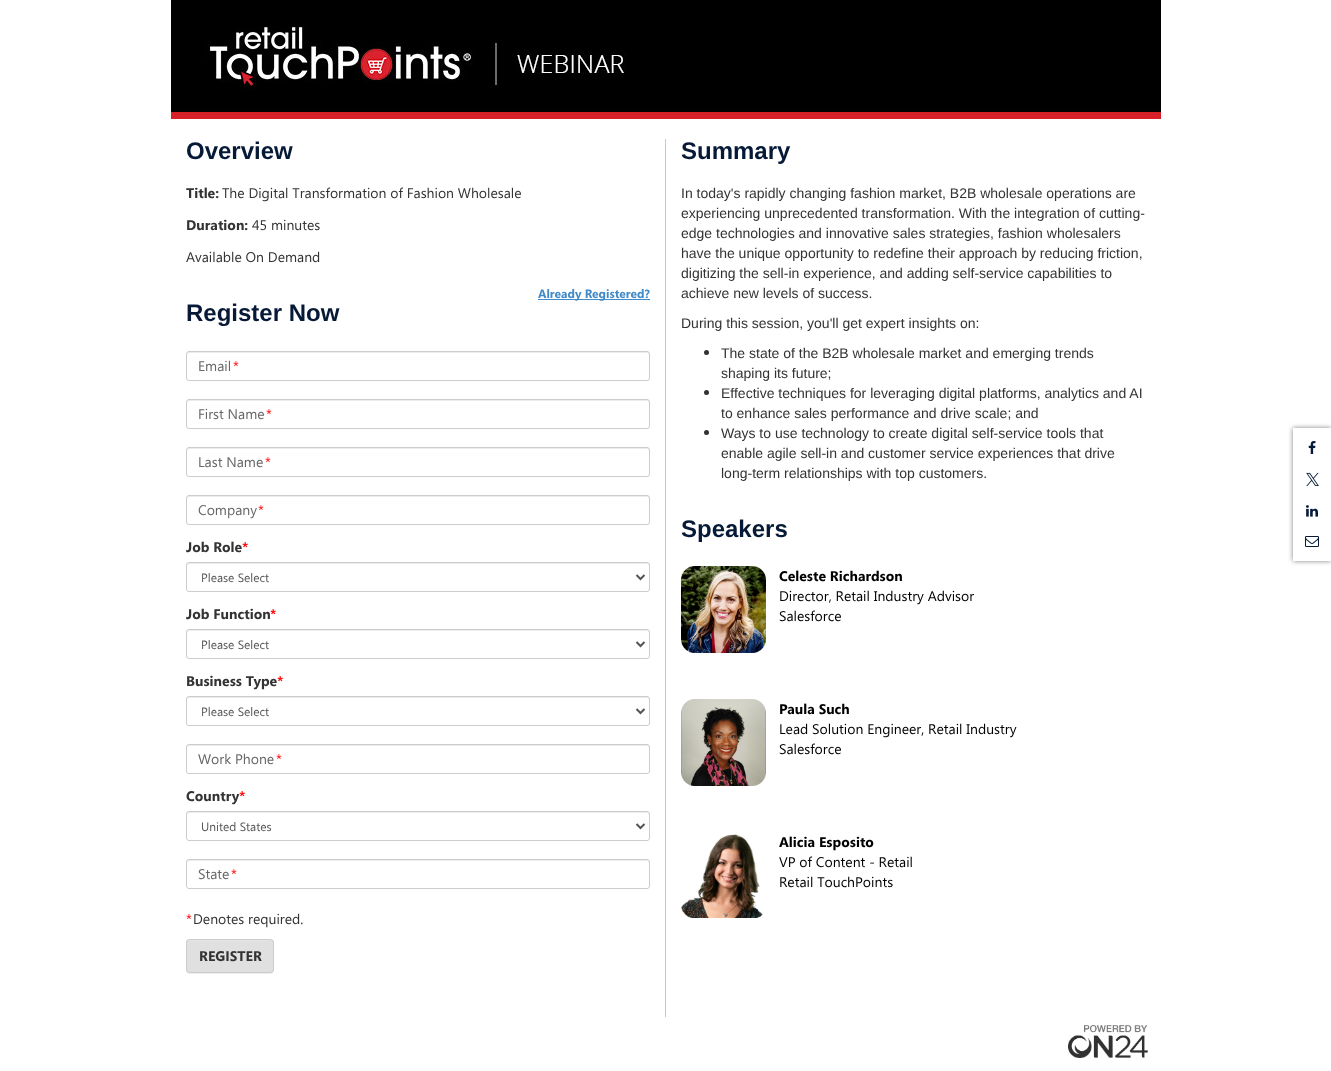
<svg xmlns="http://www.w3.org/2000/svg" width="1331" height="1071">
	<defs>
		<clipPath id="clip1"><path d="M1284 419H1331V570H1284ZM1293 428H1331V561H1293Z" clip-rule="evenodd" /></clipPath>
	</defs>
	<rect width="100%" height="100%" fill="#FFFFFF" />
	<image x="171" y="0" width="990" height="119" href="assets/img1.png" />
	<rect x="665" y="139" width="1" height="878" fill="#C8C8C8" />
	<text x="186" y="159" font-family="Liberation Sans" font-size="24" font-weight="700" fill="#061A37">Overview</text>
	<text x="186" y="198" font-family="Segoe UI" font-size="14" font-weight="700" fill="#333333">Title:</text>
	<text x="222" y="198" font-family="Segoe UI" font-size="14" fill="#333333">The Digital Transformation of Fashion Wholesale</text>
	<text x="186" y="230" font-family="Segoe UI" font-size="14" font-weight="700" fill="#333333">Duration:</text>
	<g font-family="Segoe UI" font-size="14" fill="#333333">
		<text x="252" y="230">45 minutes</text>
		<text x="186" y="262">Available On Demand</text>
	</g>
	<rect x="538" y="299" width="112" height="1" fill="#428BCA" />
	<text x="538" y="298" font-family="Segoe UI" font-size="12" font-weight="700" fill="#428BCA">Already Registered?</text>
	<text x="186" y="321" font-family="Liberation Sans" font-size="24" font-weight="700" fill="#061A37">Register Now</text>
	<path d="M189 353H647C648 353 649 354 649 355C649 354 649 352 647 352H189L187 353V355C187 354 188 353 189 353Z" fill="#ECECEC" />
	<rect x="186.5" y="351.5" width="463" height="29" rx="2.5" fill="none" stroke="#CCCCCC" />
	<text x="198" y="371" font-family="Segoe UI" font-size="14" fill="#666666">Email</text>
	<text x="233" y="371" font-family="Segoe UI" font-size="14" fill="#FF0000">*</text>
	<path d="M189 401H647C648 401 649 402 649 403C649 402 649 400 647 400H189L187 401V403C187 402 188 401 189 401Z" fill="#ECECEC" />
	<rect x="186.5" y="399.5" width="463" height="29" rx="2.5" fill="none" stroke="#CCCCCC" />
	<text x="198" y="419" font-family="Segoe UI" font-size="14" fill="#666666">First Name</text>
	<text x="266" y="419" font-family="Segoe UI" font-size="14" fill="#FF0000">*</text>
	<path d="M189 449H647C648 449 649 450 649 451C649 450 649 448 647 448H189L187 449V451C187 450 188 449 189 449Z" fill="#ECECEC" />
	<rect x="186.5" y="447.5" width="463" height="29" rx="2.5" fill="none" stroke="#CCCCCC" />
	<text x="198" y="467" font-family="Segoe UI" font-size="14" fill="#666666">Last Name</text>
	<text x="265" y="467" font-family="Segoe UI" font-size="14" fill="#FF0000">*</text>
	<path d="M189 497H647C648 497 649 498 649 499C649 498 649 496 647 496H189L187 497V499C187 498 188 497 189 497Z" fill="#ECECEC" />
	<rect x="186.5" y="495.5" width="463" height="29" rx="2.5" fill="none" stroke="#CCCCCC" />
	<text x="198" y="515" font-family="Segoe UI" font-size="14" fill="#666666">Company</text>
	<text x="258" y="515" font-family="Segoe UI" font-size="14" fill="#FF0000">*</text>
	<text x="186" y="552" font-family="Segoe UI" font-size="14" font-weight="700" fill="#333333">Job Role</text>
	<text x="242" y="552" font-family="Segoe UI" font-size="14" font-weight="700" fill="#FF0000">*</text>
	<path d="M189 564H647C648 564 649 565 649 566C649 565 649 563 647 563H189L187 564V566C187 565 188 564 189 564Z" fill="#ECECEC" />
	<rect x="186.5" y="562.5" width="463" height="29" rx="2.5" fill="none" stroke="#CCCCCC" />
	<path d="M636.5 575L640.5 579L644.5 575" fill="none" stroke="#555555" stroke-width="2" />
	<text x="201" y="582" font-family="Segoe UI" font-size="12" fill="#555555">Please Select</text>
	<text x="186" y="619" font-family="Segoe UI" font-size="14" font-weight="700" fill="#333333">Job Function</text>
	<text x="270" y="619" font-family="Segoe UI" font-size="14" font-weight="700" fill="#FF0000">*</text>
	<path d="M189 631H647C648 631 649 632 649 633C649 632 649 630 647 630H189L187 631V633C187 632 188 631 189 631Z" fill="#ECECEC" />
	<rect x="186.5" y="629.5" width="463" height="29" rx="2.5" fill="none" stroke="#CCCCCC" />
	<path d="M636.5 642L640.5 646L644.5 642" fill="none" stroke="#555555" stroke-width="2" />
	<text x="201" y="649" font-family="Segoe UI" font-size="12" fill="#555555">Please Select</text>
	<text x="186" y="686" font-family="Segoe UI" font-size="14" font-weight="700" fill="#333333">Business Type</text>
	<text x="277" y="686" font-family="Segoe UI" font-size="14" font-weight="700" fill="#FF0000">*</text>
	<path d="M189 698H647C648 698 649 699 649 700C649 699 649 697 647 697H189L187 698V700C187 699 188 698 189 698Z" fill="#ECECEC" />
	<rect x="186.5" y="696.5" width="463" height="29" rx="2.5" fill="none" stroke="#CCCCCC" />
	<path d="M636.5 709L640.5 713L644.5 709" fill="none" stroke="#555555" stroke-width="2" />
	<text x="201" y="716" font-family="Segoe UI" font-size="12" fill="#555555">Please Select</text>
	<path d="M189 746H647C648 746 649 747 649 748C649 747 649 745 647 745H189L187 746V748C187 747 188 746 189 746Z" fill="#ECECEC" />
	<rect x="186.5" y="744.5" width="463" height="29" rx="2.5" fill="none" stroke="#CCCCCC" />
	<text x="198" y="764" font-family="Segoe UI" font-size="14" fill="#666666">Work Phone</text>
	<text x="276" y="764" font-family="Segoe UI" font-size="14" fill="#FF0000">*</text>
	<text x="186" y="801" font-family="Segoe UI" font-size="14" font-weight="700" fill="#333333">Country</text>
	<text x="239" y="801" font-family="Segoe UI" font-size="14" font-weight="700" fill="#FF0000">*</text>
	<path d="M189 813H647C648 813 649 814 649 815C649 814 649 812 647 812H189L187 813V815C187 814 188 813 189 813Z" fill="#ECECEC" />
	<rect x="186.5" y="811.5" width="463" height="29" rx="2.5" fill="none" stroke="#CCCCCC" />
	<path d="M636.5 824L640.5 828L644.5 824" fill="none" stroke="#555555" stroke-width="2" />
	<text x="201" y="831" font-family="Segoe UI" font-size="12" fill="#555555">United States</text>
	<path d="M189 861H647C648 861 649 862 649 863C649 862 649 860 647 860H189L187 861V863C187 862 188 861 189 861Z" fill="#ECECEC" />
	<rect x="186.5" y="859.5" width="463" height="29" rx="2.5" fill="none" stroke="#CCCCCC" />
	<text x="198" y="879" font-family="Segoe UI" font-size="14" fill="#666666">State</text>
	<g font-family="Segoe UI" font-size="14" fill="#FF0000">
		<text x="231" y="879">*</text>
		<text x="186" y="924">*</text>
	</g>
	<text x="193" y="924" font-family="Segoe UI" font-size="14" fill="#333333">Denotes required.</text>
	<rect x="186" y="940" width="88" height="34" rx="4" fill="#000000" fill-opacity="0.07" filter="blur(0.5px)" />
	<rect x="186" y="939" width="88" height="34" rx="4" fill="#E0E0E0" />
	<path d="M190 941H270C272 941 273 942 273 944C273 936 260 940 257 940H203C200 940 187 936 187 944C187 942 188 941 190 941Z" fill="#E5E5E5" />
	<rect x="186.5" y="939.5" width="87" height="33" rx="3.5" fill="none" stroke="#CCCCCC" />
	<text x="199" y="961" font-family="Segoe UI" font-size="14" font-weight="700" fill="#333333">REGISTER</text>
	<text x="681" y="159" font-family="Liberation Sans" font-size="24" font-weight="700" fill="#061A37">Summary</text>
	<g font-family="Liberation Sans" font-size="14" fill="#333333">
		<text x="681" y="198">In today's rapidly changing fashion market, B2B wholesale operations are</text>
		<text x="681" y="218">experiencing unprecedented transformation. With the integration of cutting-</text>
		<text x="681" y="238">edge technologies and innovative sales strategies, fashion wholesalers</text>
		<text x="681" y="258">have the unique opportunity to redefine their approach by reducing friction,</text>
		<text x="681" y="278">digitizing the sell-in experience, and adding self-service capabilities to</text>
		<text x="681" y="298">achieve new levels of success.</text>
		<text x="681" y="328">During this session, you'll get expert insights on:</text>
	</g>
	<circle cx="706.5" cy="352.5" r="2.5" fill="#333333" />
	<g font-family="Liberation Sans" font-size="14" fill="#333333">
		<text x="721" y="358">The state of the B2B wholesale market and emerging trends</text>
		<text x="721" y="378">shaping its future;</text>
	</g>
	<circle cx="706.5" cy="392.5" r="2.5" fill="#333333" />
	<g font-family="Liberation Sans" font-size="14" fill="#333333">
		<text x="721" y="398">Effective techniques for leveraging digital platforms, analytics and AI</text>
		<text x="721" y="418">to enhance sales performance and drive scale; and</text>
	</g>
	<circle cx="706.5" cy="432.5" r="2.5" fill="#333333" />
	<g font-family="Liberation Sans" font-size="14" fill="#333333">
		<text x="721" y="438">Ways to use technology to create digital self-service tools that</text>
		<text x="721" y="458">enable agile sell-in and customer service experiences that drive</text>
		<text x="721" y="478">long-term relationships with top customers.</text>
	</g>
	<text x="681" y="537" font-family="Liberation Sans" font-size="24" font-weight="700" fill="#061A37">Speakers</text>
	<image x="681" y="566" width="85" height="87" href="assets/img2.png" />
	<text x="779" y="581" font-family="Segoe UI" font-size="14" font-weight="700" fill="#000000">Celeste Richardson</text>
	<g font-family="Segoe UI" font-size="14" fill="#000000">
		<text x="779" y="601">Director, Retail Industry Advisor</text>
		<text x="779" y="621">Salesforce</text>
	</g>
	<image x="681" y="699" width="85" height="87" href="assets/img3.png" />
	<text x="779" y="714" font-family="Segoe UI" font-size="14" font-weight="700" fill="#000000">Paula Such</text>
	<g font-family="Segoe UI" font-size="14" fill="#000000">
		<text x="779" y="734">Lead Solution Engineer, Retail Industry</text>
		<text x="779" y="754">Salesforce</text>
	</g>
	<image x="681" y="834" width="82" height="84" href="assets/img4.png" />
	<text x="779" y="847" font-family="Segoe UI" font-size="14" font-weight="700" fill="#000000">Alicia Esposito</text>
	<g font-family="Segoe UI" font-size="14" fill="#000000">
		<text x="779" y="867">VP of Content - Retail</text>
		<text x="779" y="887">Retail TouchPoints</text>
	</g>
	<g clip-path="url(#clip1)">
		<rect x="1293" y="428" width="38" height="133" fill="#808080" filter="blur(2.5px)" />
	</g>
	<image x="1308" y="441" width="8" height="13" href="assets/img5.png" />
	<image x="1306" y="472" width="13" height="14" href="assets/img6.png" />
	<image x="1306" y="505" width="12" height="12" href="assets/img7.png" />
	<image x="1305" y="536" width="14" height="11" href="assets/img8.png" />
	<image x="1068" y="1025" width="80" height="33" href="assets/img9.png" />
</svg>
